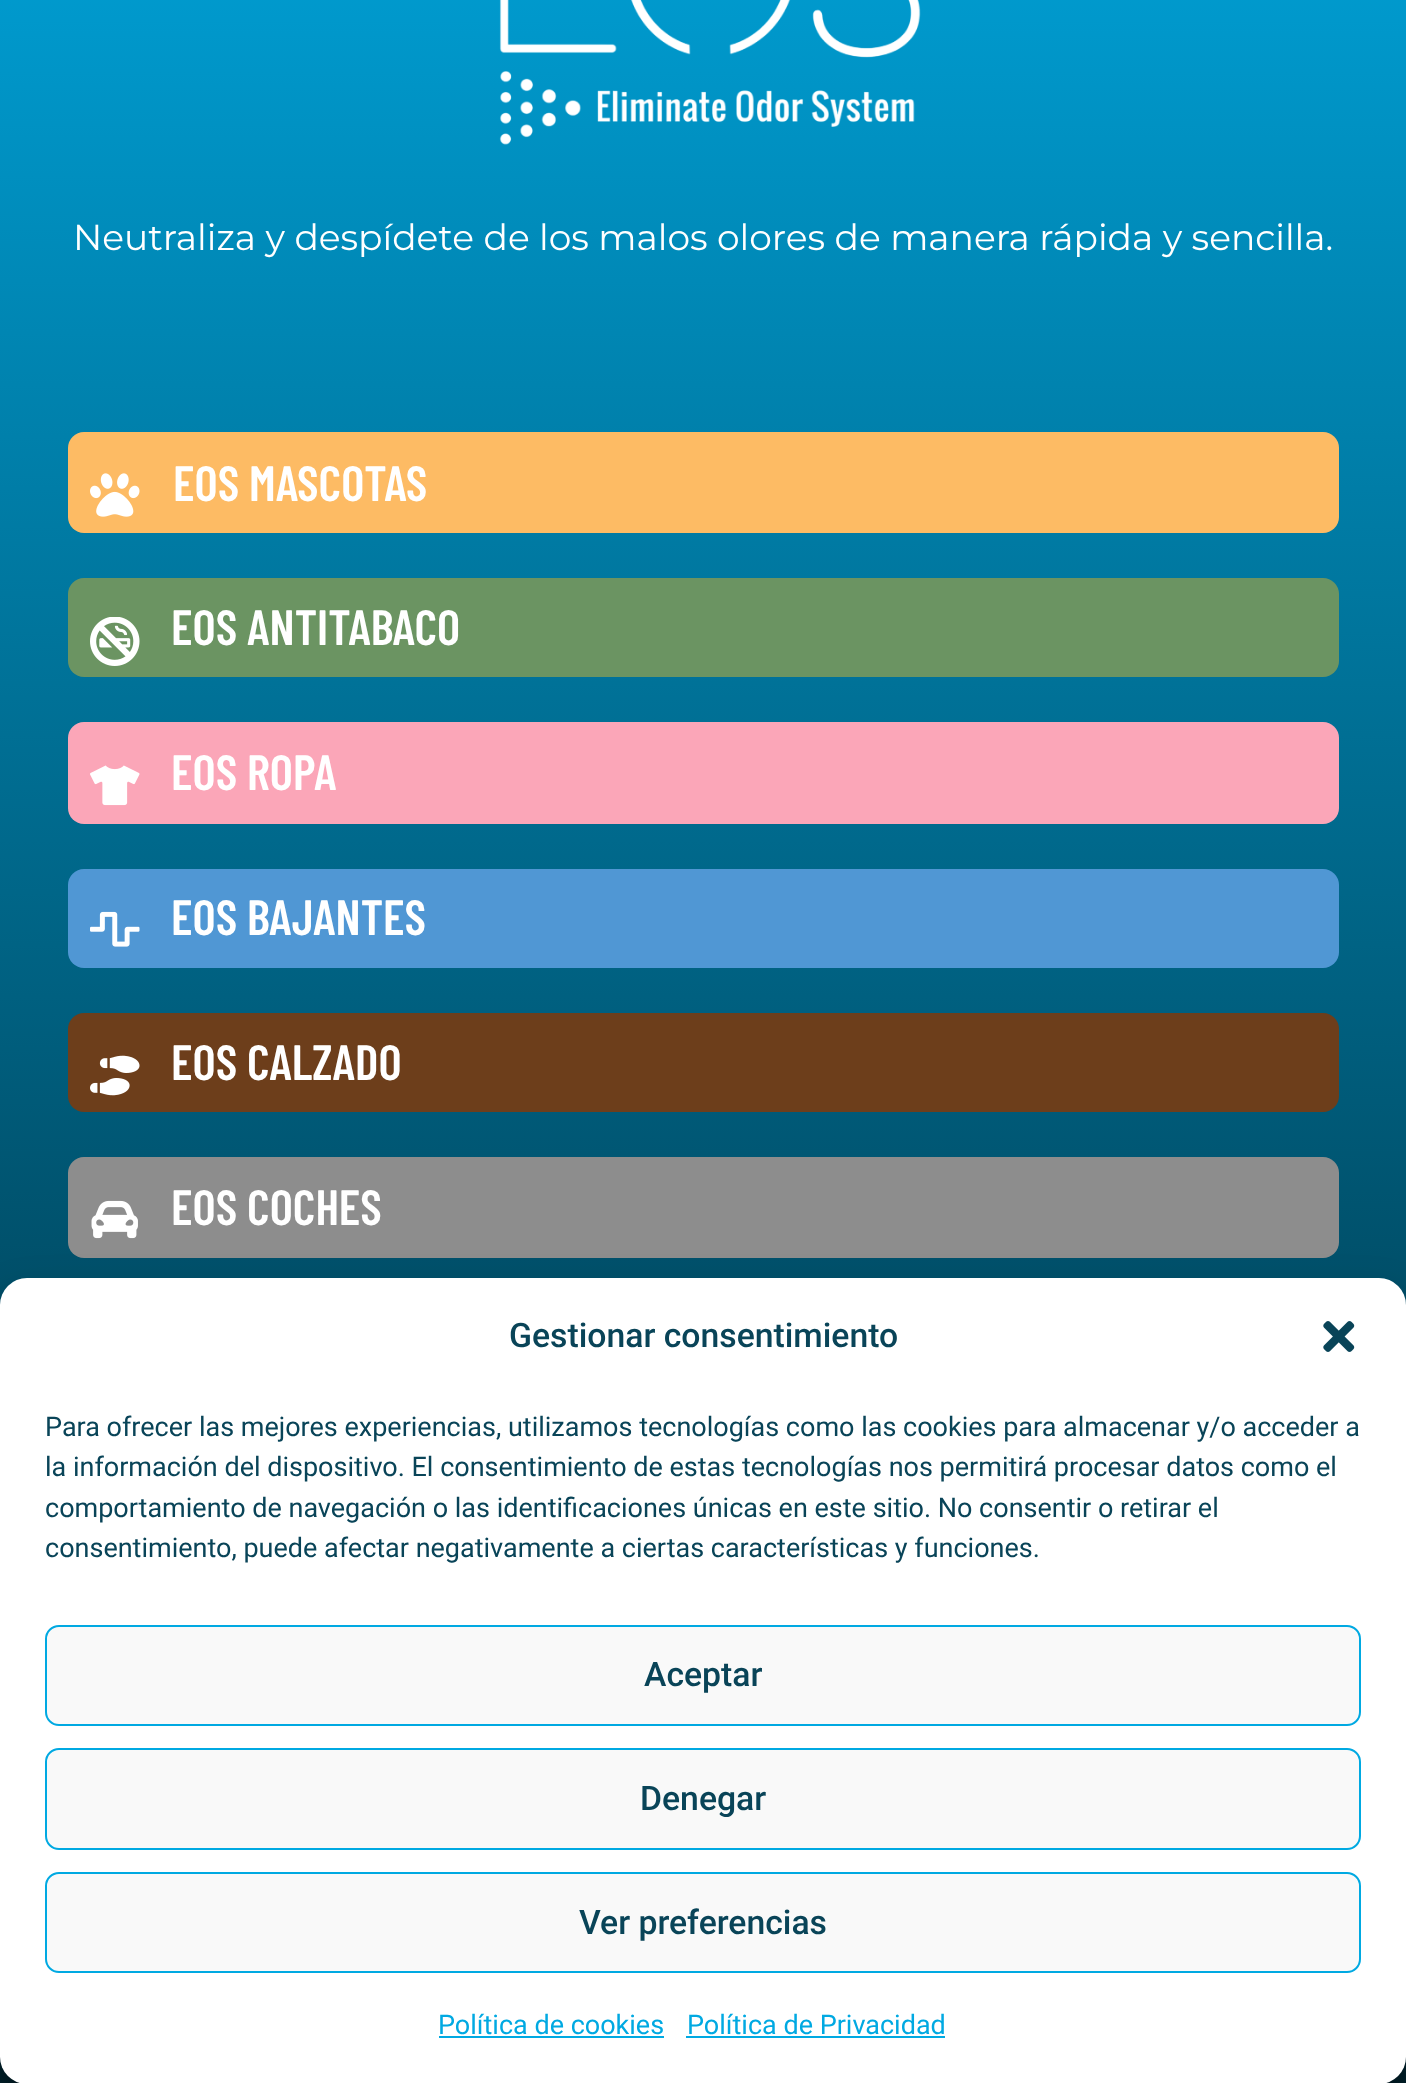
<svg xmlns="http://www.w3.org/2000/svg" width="1406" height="2083">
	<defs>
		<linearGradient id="g1" gradientUnits="userSpaceOnUse" x1="703" y1="-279" x2="703" y2="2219"><stop offset="0" stop-color="#00A9E2" /><stop offset="1" stop-color="#001A22" /></linearGradient>
	</defs>
	<rect width="100%" height="100%" fill="#FFFFFF" />
	<rect x="0" y="0" width="1406" height="2083" fill="url(#g1)" />
	<image x="499" y="0" width="422" height="145" href="assets/img1.png" />
	<text x="73" y="250" font-family="Montserrat" font-size="36" fill="#FFFFFF">Neutraliza y despídete de los malos olores de manera rápida y sencilla.</text>
	<rect x="68" y="432" width="1271" height="101" rx="16" fill="#FDBB64" />
	<image x="90" y="473" width="50" height="44" href="assets/img2.png" />
	<text x="173" y="501" font-family="Barlow Condensed" font-size="49.5" font-weight="600" fill="#FFFFFF">EOS MASCOTAS</text>
	<rect x="68" y="578" width="1271" height="99" rx="16" fill="#6B9462" />
	<image x="90" y="617" width="50" height="49" href="assets/img3.png" />
	<text x="171" y="645" font-family="Barlow Condensed" font-size="49.5" font-weight="600" fill="#FFFFFF">EOS ANTITABACO</text>
	<rect x="68" y="722" width="1271" height="102" rx="16" fill="#FBA6B8" />
	<image x="90" y="765" width="50" height="41" href="assets/img4.png" />
	<text x="171" y="790" font-family="Barlow Condensed" font-size="49.5" font-weight="600" fill="#FFFFFF">EOS ROPA</text>
	<rect x="68" y="869" width="1271" height="99" rx="16" fill="#5097D4" />
	<image x="90" y="911" width="50" height="36" href="assets/img5.png" />
	<text x="171" y="935" font-family="Barlow Condensed" font-size="49.5" font-weight="600" fill="#FFFFFF">EOS BAJANTES</text>
	<rect x="68" y="1013" width="1271" height="99" rx="16" fill="#6D3E1B" />
	<image x="90" y="1055" width="50" height="41" href="assets/img6.png" />
	<text x="171" y="1080" font-family="Barlow Condensed" font-size="49.5" font-weight="600" fill="#FFFFFF">EOS CALZADO</text>
	<rect x="68" y="1157" width="1271" height="101" rx="16" fill="#8D8D8D" />
	<image x="91" y="1200" width="47" height="39" href="assets/img7.png" />
	<text x="171" y="1225" font-family="Barlow Condensed" font-size="49.5" font-weight="600" fill="#FFFFFF">EOS COCHES</text>
	<rect x="0" y="1292" width="1406" height="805" rx="27" fill="#000000" fill-opacity="0.23" filter="blur(7px)" />
	<rect x="0" y="1301" width="1406" height="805" rx="27" fill="#000000" fill-opacity="0.19" filter="blur(22.5px)" />
	<rect x="0" y="1278" width="1406" height="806" rx="27" fill="#FFFFFF" />
	<text x="509" y="1347" font-family="Roboto" font-size="33.75" font-weight="500" fill="#094458">Gestionar consentimiento</text>
	<image x="1323" y="1321" width="32" height="31" href="assets/img8.png" />
	<g font-family="Roboto" font-size="27" fill="#094458">
		<text x="45" y="1436">Para ofrecer las mejores experiencias, utilizamos tecnologías como las cookies para almacenar y/o acceder a</text>
		<text x="45" y="1476">la información del dispositivo. El consentimiento de estas tecnologías nos permitirá procesar datos como el</text>
		<text x="45" y="1517">comportamiento de navegación o las identificaciones únicas en este sitio. No consentir o retirar el</text>
		<text x="45" y="1557">consentimiento, puede afectar negativamente a ciertas características y funciones.</text>
	</g>
	<rect x="46" y="1626" width="1314" height="99" rx="13" fill="#F9F9F9" stroke="#00A9E2" stroke-width="2" />
	<text x="644" y="1686" font-family="Roboto" font-size="33.75" font-weight="500" fill="#094458">Aceptar</text>
	<rect x="46" y="1749" width="1314" height="100" rx="13" fill="#F9F9F9" stroke="#00A9E2" stroke-width="2" />
	<text x="640" y="1810" font-family="Roboto" font-size="33.75" font-weight="500" fill="#094458">Denegar</text>
	<rect x="46" y="1873" width="1314" height="99" rx="13" fill="#F9F9F9" stroke="#00A9E2" stroke-width="2" />
	<text x="579" y="1934" font-family="Roboto" font-size="33.75" font-weight="500" fill="#094458">Ver preferencias</text>
	<text x="438" y="2034" font-family="Roboto" font-size="27" fill="#00A9E2">Política de cookies</text>
	<rect x="439" y="2036" width="225" height="2" fill="#00A9E2" />
	<text x="687" y="2034" font-family="Roboto" font-size="27" fill="#00A9E2">Política de Privacidad</text>
	<rect x="686" y="2036" width="259" height="2" fill="#00A9E2" />
</svg>
